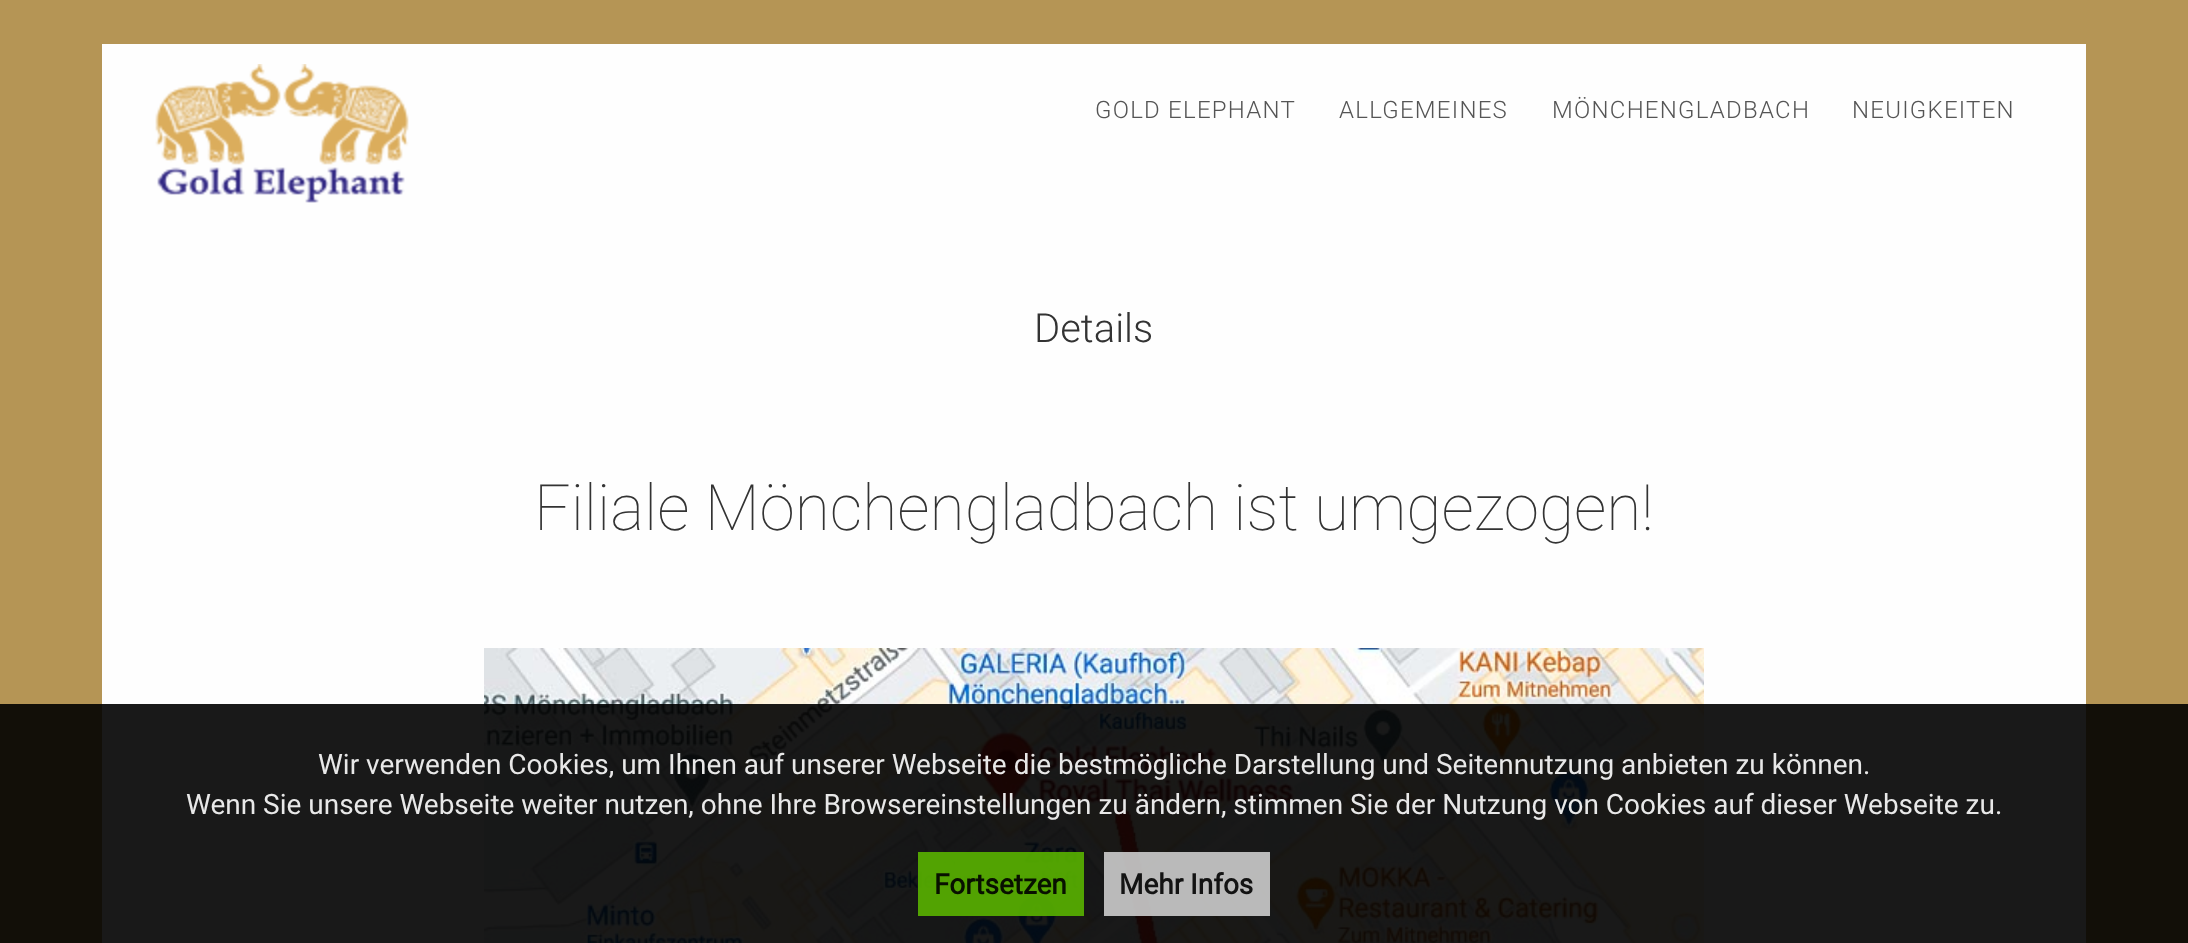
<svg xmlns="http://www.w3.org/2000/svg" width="2188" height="943">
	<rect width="100%" height="100%" fill="#B59555" />
	<rect x="102" y="44" width="1984" height="899" fill="#FEFEFE" />
	<image x="155" y="64" width="254" height="139" href="assets/img1.png" />
	<g font-family="Roboto" font-size="24" font-weight="300" letter-spacing="1.25" fill="#555555">
		<text x="1095" y="118">GOLD ELEPHANT</text>
		<text x="1339" y="118">ALLGEMEINES</text>
		<text x="1552" y="118">MÖNCHENGLADBACH</text>
		<text x="1852" y="118">NEUIGKEITEN</text>
	</g>
	<text x="1034" y="342" font-family="Roboto" font-size="40" font-weight="300" fill="#333333">Details</text>
	<text x="534" y="530" font-family="Roboto" font-size="64" font-weight="100" fill="#333333">Filiale Mönchengladbach ist umgezogen!</text>
	<image x="484" y="648" width="1220" height="295" href="assets/img2.png" />
	<rect x="0" y="704" width="2188" height="239" fill="#000000" fill-opacity="0.9" />
	<g font-family="Roboto" font-size="28" fill="#E8E8E8">
		<text x="318" y="774">Wir verwenden Cookies, um Ihnen auf unserer Webseite die bestmögliche Darstellung und Seitennutzung anbieten zu können.</text>
		<text x="186" y="814">Wenn Sie unsere Webseite weiter nutzen, ohne Ihre Browsereinstellungen zu ändern, stimmen Sie der Nutzung von Cookies auf dieser Webseite zu.</text>
	</g>
	<rect x="918" y="852" width="166" height="64" fill="#59B300" fill-opacity="0.9" />
	<text x="934" y="894" font-family="Roboto" font-size="28" font-weight="700" fill="#081000">Fortsetzen</text>
	<rect x="1104" y="852" width="166" height="64" fill="#CCCCCC" fill-opacity="0.9" />
	<text x="1119" y="894" font-family="Roboto" font-size="28" font-weight="700" fill="#131313">Mehr Infos</text>
</svg>
